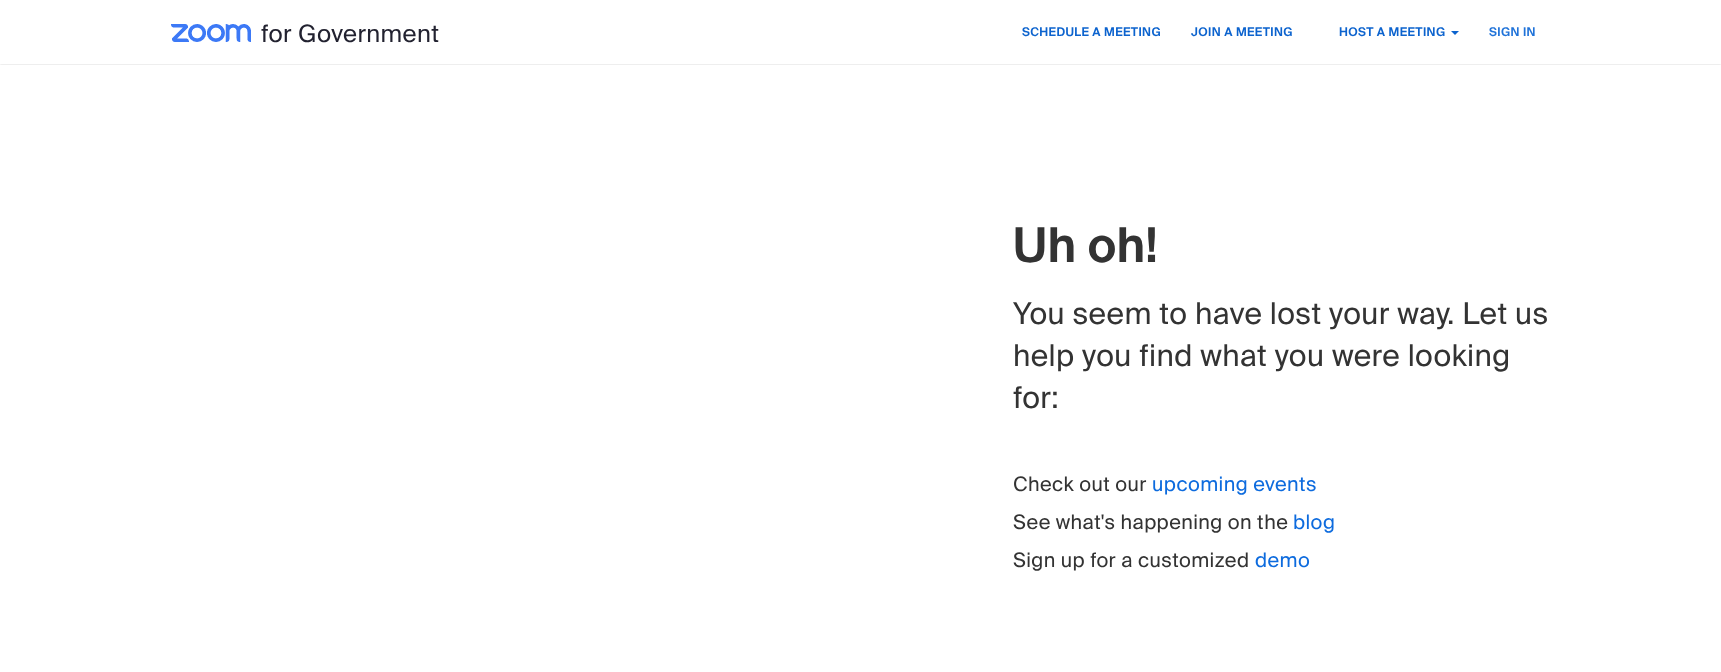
<svg xmlns="http://www.w3.org/2000/svg" width="1721" height="672">
	<defs>
		<clipPath id="clip1"><rect x="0" y="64" width="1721" height="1" /></clipPath>
	</defs>
	<rect width="100%" height="100%" fill="#FFFFFF" />
	<g clip-path="url(#clip1)">
		<rect x="0" y="0" width="1721" height="64" fill="#000000" fill-opacity="0.2" filter="blur(1px)" />
	</g>
	<image x="171" y="24" width="80" height="18" href="assets/img1.png" />
	<text x="261" y="42" font-family="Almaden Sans" font-size="24" letter-spacing="0.4" fill="#222230">for Government</text>
	<g font-family="Almaden Sans" font-size="12" font-weight="600" letter-spacing="0.4" fill="#0C63CE">
		<text x="1022" y="36">SCHEDULE A MEETING</text>
		<text x="1191" y="36">JOIN A MEETING</text>
		<text x="1339" y="36">HOST A MEETING</text>
	</g>
	<path d="M1451 31H1459L1455 35Z" fill="#0C63CE" />
	<text x="1489" y="36" font-family="Almaden Sans" font-size="12" font-weight="600" letter-spacing="0.4" fill="#2073D9">SIGN IN</text>
	<text x="1013" y="262" font-family="Almaden Sans" font-size="48" font-weight="600" letter-spacing="0.4" fill="#333333">Uh oh!</text>
	<g font-family="Almaden Sans" font-size="30" letter-spacing="0.4" fill="#333333">
		<text x="1013" y="324">You seem to have lost your way. Let us</text>
		<text x="1013" y="366">help you find what you were looking</text>
		<text x="1013" y="408">for:</text>
	</g>
	<text x="1013" y="491" font-family="Almaden Sans" font-size="20" letter-spacing="0.4" fill="#333333">Check out our</text>
	<text x="1152" y="491" font-family="Almaden Sans" font-size="20" letter-spacing="0.4" fill="#0D6BDE">upcoming events</text>
	<text x="1013" y="529" font-family="Almaden Sans" font-size="20" letter-spacing="0.4" fill="#333333">See what's happening on the</text>
	<text x="1293" y="529" font-family="Almaden Sans" font-size="20" letter-spacing="0.4" fill="#0D6BDE">blog</text>
	<text x="1013" y="567" font-family="Almaden Sans" font-size="20" letter-spacing="0.4" fill="#333333">Sign up for a customized</text>
	<text x="1255" y="567" font-family="Almaden Sans" font-size="20" letter-spacing="0.4" fill="#0D6BDE">demo</text>
</svg>
